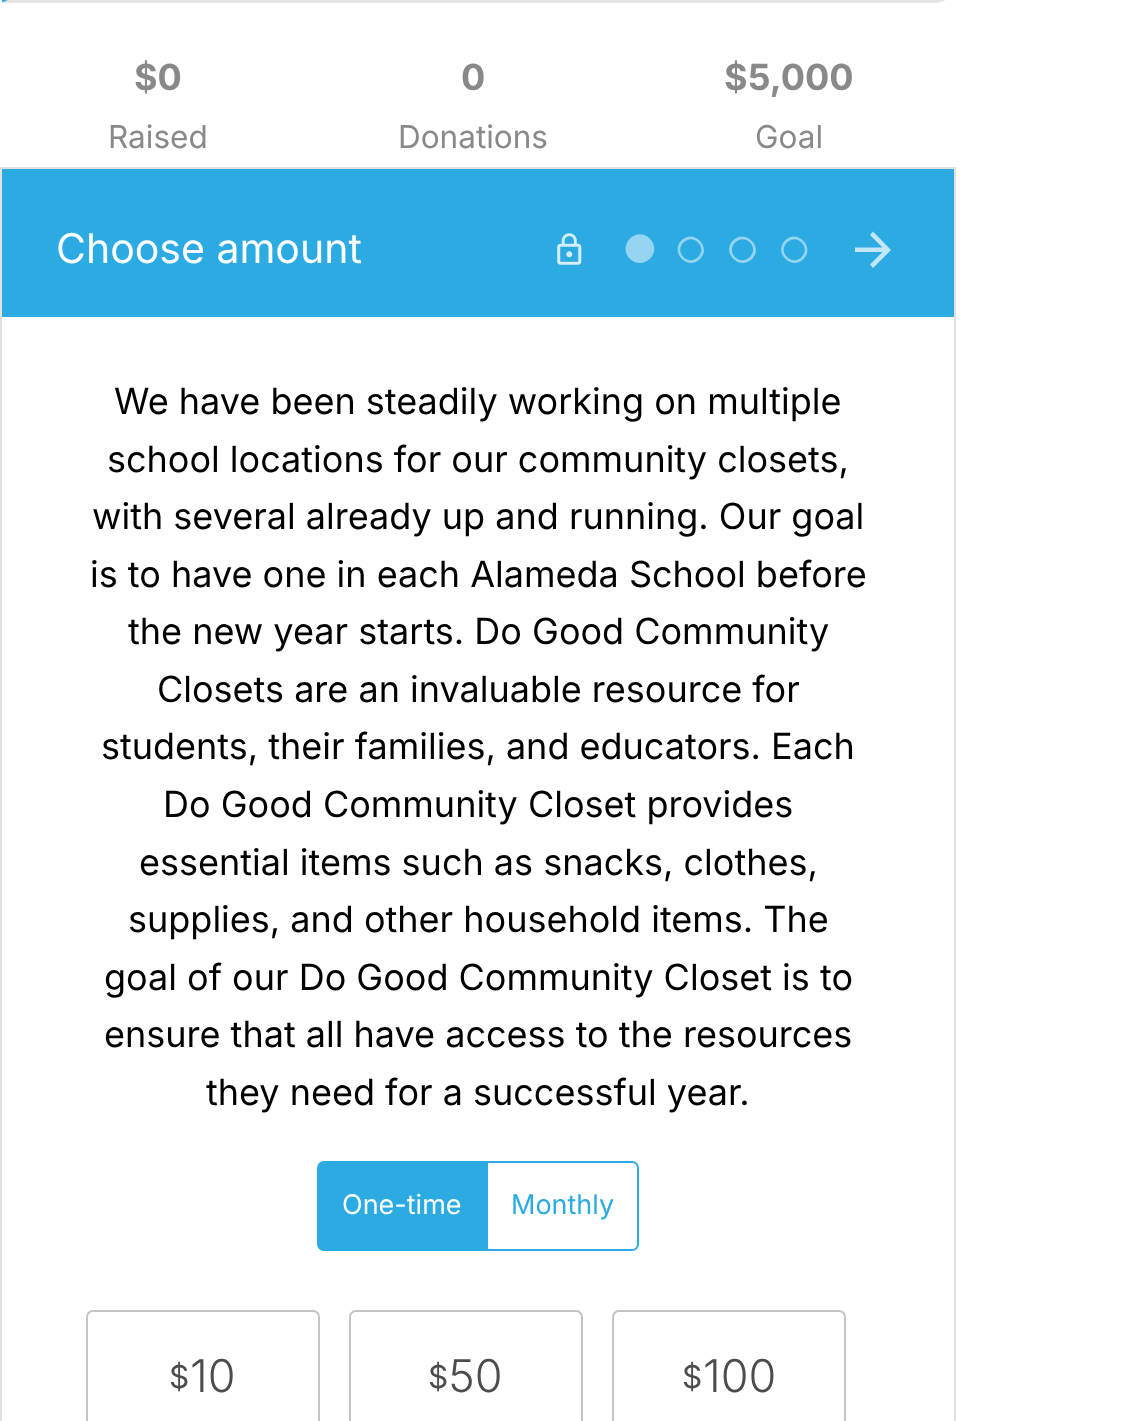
<svg xmlns="http://www.w3.org/2000/svg" width="1128" height="1421">
	<rect width="100%" height="100%" fill="#FFFFFF" />
	<path d="M1-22H935.5C946.5-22 955-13.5 955-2.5V-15.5C955-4.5 946.5 4 935.5 4H1Z" fill="#E5E5E5" stroke="#FFFFFF" stroke-width="2" />
	<path d="M2-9C7-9 11-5 11 0V-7C11-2 7 2 2 2Z" fill="#2CABE3" />
	<text x="134" y="90" font-family="Inter" font-size="36" font-weight="700" fill="#898989">$0</text>
	<text x="108" y="148" font-family="Inter" font-size="31.5" fill="#898989">Raised</text>
	<text x="461" y="90" font-family="Inter" font-size="36" font-weight="700" fill="#898989">0</text>
	<text x="398" y="148" font-family="Inter" font-size="31.5" fill="#898989">Donations</text>
	<text x="724" y="90" font-family="Inter" font-size="36" font-weight="700" fill="#898989">$5,000</text>
	<text x="755" y="148" font-family="Inter" font-size="31.5" fill="#898989">Goal</text>
	<rect x="1" y="168" width="954" height="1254" fill="none" stroke="#E1E1E1" stroke-width="2" />
	<rect x="2" y="169" width="952" height="148" fill="#2CABE3" />
	<text x="56" y="263" font-family="Inter" font-size="41" fill="#FFFFFF">Choose amount</text>
	<image x="557" y="233" width="25" height="32" href="assets/img1.png" />
	<path d="M631.5 257C641.5 267 656 252 646.5 242.5C636.5 232.5 622 247.5 631.5 257ZM629.5 240.5C642 228.5 660.5 247 648.5 259C636 271 617.5 252.5 629.5 240.5Z" fill="#95D5F1" />
	<path d="M630 238.5C643.5 225.5 663 245.5 650 258.5C637 271.5 617 252 630 238.5Z" fill="#95D5F1" />
	<path d="M683.5 257C693 267 708 252 698 242.5C688.5 232.5 673.5 247.5 683.5 257ZM681.5 240.5C693.5 228.5 712 247 700 259C688 271 669.5 252.5 681.5 240.5Z" fill="#95D5F1" />
	<path d="M735 257C745 267 759.5 252 750 242.5C740 232.5 725.5 247.5 735 257ZM733 240.5C745.5 228.5 764 247 752 259C739.5 271 721 252.5 733 240.5Z" fill="#95D5F1" />
	<path d="M787 257C796.5 267 811.5 252 801.5 242.5C792 232.5 777 247.5 787 257ZM785 240.5C797 228.5 815.5 247 803.5 259C791.5 271 773 252.5 785 240.5Z" fill="#95D5F1" />
	<path d="M873 231.5L891 250L873 268L870 264.5L882.5 252H855V247.5H882.5L870 235Z" fill="#C0E6F7" />
	<g font-family="Inter" font-size="36" fill="#000000">
		<text x="114" y="414">We have been steadily working on multiple</text>
		<text x="107" y="472">school locations for our community closets,</text>
		<text x="92" y="529">with several already up and running. Our goal</text>
		<text x="90" y="587">is to have one in each Alameda School before</text>
		<text x="128" y="644">the new year starts. Do Good Community</text>
		<text x="157" y="702">Closets are an invaluable resource for</text>
		<text x="101" y="759">students, their families, and educators. Each</text>
		<text x="163" y="817">Do Good Community Closet provides</text>
		<text x="139" y="875">essential items such as snacks, clothes,</text>
		<text x="128" y="932">supplies, and other household items. The</text>
		<text x="104" y="990">goal of our Do Good Community Closet is to</text>
		<text x="104" y="1047">ensure that all have access to the resources</text>
		<text x="206" y="1105">they need for a successful year.</text>
	</g>
	<path d="M324 1162H485V1250H324C320.5 1250 318 1247.5 318 1244V1168C318 1164.5 320.5 1162 324 1162Z" fill="#2CABE3" stroke="#2CABE3" stroke-width="2" />
	<text x="342" y="1214" font-family="Inter" font-size="27" fill="#FFFFFF">One-time</text>
	<path d="M487 1162H632C635.5 1162 638 1164.5 638 1168V1244C638 1247.5 635.5 1250 632 1250H487Z" fill="none" stroke="#2CABE3" stroke-width="2" />
	<text x="511" y="1214" font-family="Inter" font-size="27" fill="#2CABE3">Monthly</text>
	<rect x="87" y="1311" width="232" height="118" rx="6" fill="none" stroke="#C4C3C3" stroke-width="2" />
	<text x="169" y="1388" font-family="Inter" font-size="31.5" fill="#4C4C4C">$</text>
	<text x="190" y="1392" font-family="Inter" font-size="45" font-weight="300" fill="#4C4C4C">10</text>
	<rect x="350" y="1311" width="232" height="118" rx="6" fill="none" stroke="#C4C3C3" stroke-width="2" />
	<text x="428" y="1388" font-family="Inter" font-size="31.5" fill="#4C4C4C">$</text>
	<text x="448" y="1392" font-family="Inter" font-size="45" font-weight="300" fill="#4C4C4C">50</text>
	<rect x="613" y="1311" width="232" height="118" rx="6" fill="none" stroke="#C4C3C3" stroke-width="2" />
	<text x="682" y="1388" font-family="Inter" font-size="31.5" fill="#4C4C4C">$</text>
	<text x="703" y="1392" font-family="Inter" font-size="45" font-weight="300" fill="#4C4C4C">100</text>
</svg>
